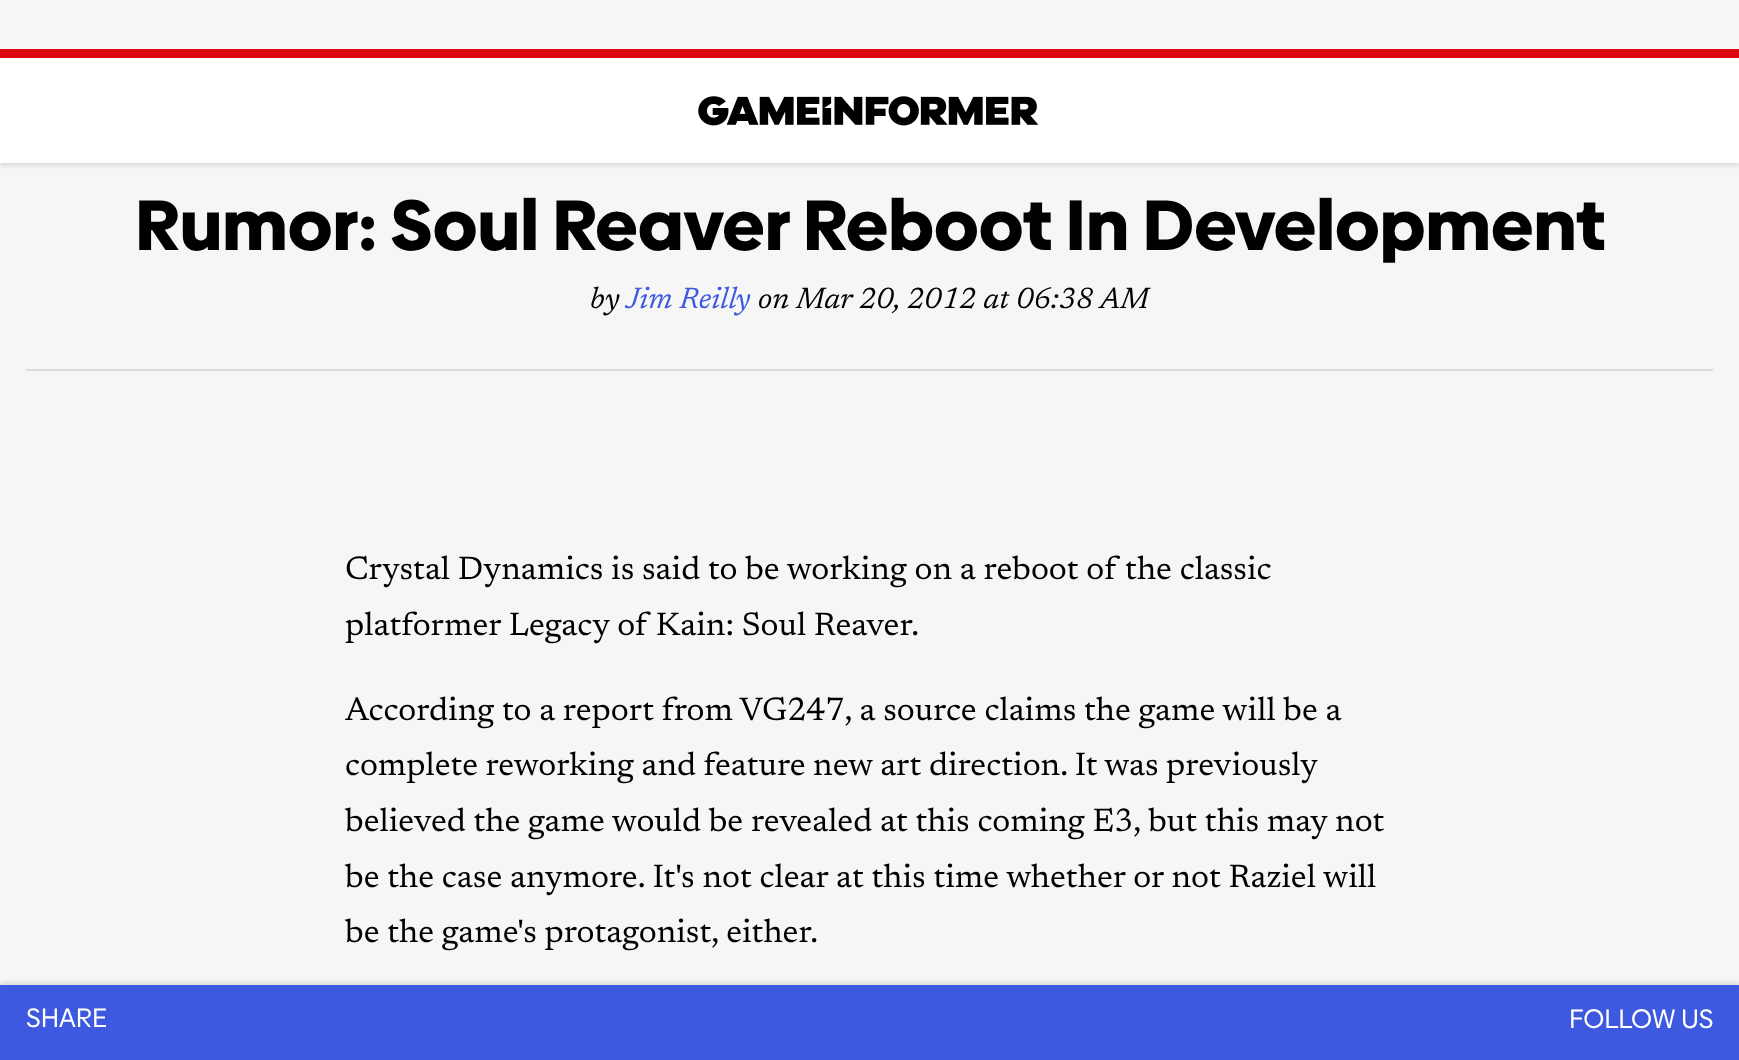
<svg xmlns="http://www.w3.org/2000/svg" width="1739" height="1060">
	<rect width="100%" height="100%" fill="#F6F6F6" />
	<rect x="0" y="49" width="1739" height="9" fill="#DB080F" />
	<rect x="0" y="61" width="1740" height="105" fill="#000000" fill-opacity="0.1" filter="blur(2px)" />
	<rect x="0" y="58" width="1739" height="105" fill="#FFFFFF" />
	<image x="698" y="96" width="341" height="30" href="assets/img1.png" />
	<text x="135" y="250" font-family="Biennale" font-size="71.4" font-weight="900" fill="#000000">Rumor: Soul Reaver Reboot In Development</text>
	<rect x="26" y="369" width="1687" height="2" fill="#DBDBDB" />
	<text x="590" y="308" font-family="Newsreader" font-size="29.75" font-style="italic" fill="#000000">by</text>
	<text x="626" y="308" font-family="Newsreader" font-size="29.75" font-style="italic" fill="#3C59E0">Jim Reilly</text>
	<text x="758" y="308" font-family="Newsreader" font-size="29.75" font-style="italic" fill="#000000">on Mar 20, 2012 at 06:38 AM</text>
	<g font-family="Newsreader" font-size="32.75" fill="#000000">
		<text x="345" y="579">Crystal Dynamics is said to be working on a reboot of the classic</text>
		<text x="345" y="635">platformer Legacy of Kain: Soul Reaver.</text>
		<text x="345" y="720">According to a report from VG247, a source claims the game will be a</text>
		<text x="345" y="775" word-spacing="-0.25">complete reworking and feature new art direction. It was previously</text>
		<text x="345" y="831">believed the game would be revealed at this coming E3, but this may not</text>
		<text x="345" y="887">be the case anymore. It's not clear at this time whether or not Raziel will</text>
		<text x="345" y="942">be the game's protagonist, either.</text>
	</g>
	<rect x="0" y="982" width="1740" height="75" fill="#000000" fill-opacity="0.1" filter="blur(2px)" />
	<rect x="0" y="985" width="1739" height="75" fill="#3C59E0" />
	<g font-family="Biennale" font-size="26.75" fill="#FFFFFF">
		<text x="26" y="1027">SHARE</text>
		<text x="1569" y="1028">FOLLOW US</text>
	</g>
</svg>
